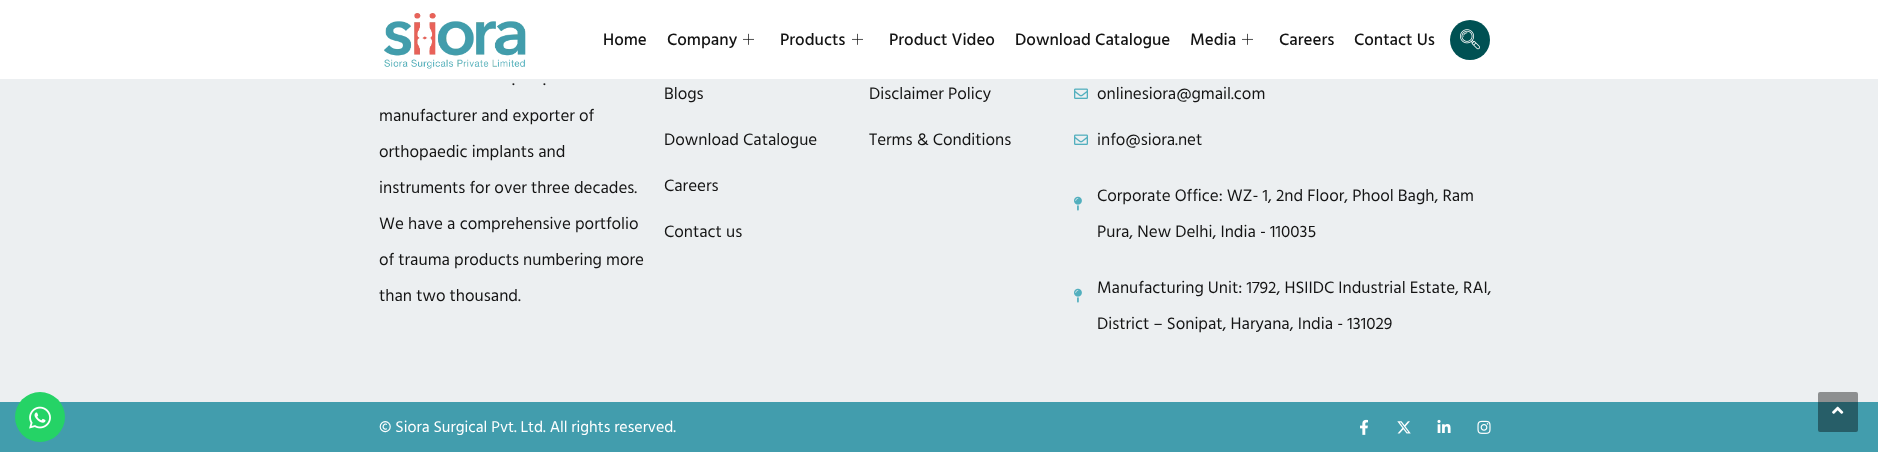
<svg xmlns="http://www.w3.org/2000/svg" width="1878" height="452">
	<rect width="100%" height="100%" fill="#ECEFF1" />
	<rect x="0" y="402" width="1878" height="50" fill="#429DAD" />
	<circle cx="40" cy="417" r="25" fill="#25D366" />
	<image x="29" y="406" width="22" height="23" href="assets/img1.png" />
	<rect x="0" y="0" width="1878" height="79" fill="#FFFFFF" />
	<image x="384" y="13" width="142" height="56" href="assets/img2.png" />
	<g font-family="Hind Madurai" font-size="17" font-weight="500" fill="#141414">
		<text x="603" y="45">Home</text>
		<text x="667" y="45">Company</text>
	</g>
	<image x="743" y="33" width="11" height="12" href="assets/img3.png" />
	<text x="780" y="45" font-family="Hind Madurai" font-size="17" font-weight="500" fill="#141414">Products</text>
	<image x="852" y="33" width="11" height="12" href="assets/img3.png" />
	<g font-family="Hind Madurai" font-size="17" font-weight="500" fill="#141414">
		<text x="889" y="45">Product Video</text>
		<text x="1015" y="45">Download Catalogue</text>
		<text x="1190" y="45">Media</text>
	</g>
	<image x="1242" y="33" width="11" height="12" href="assets/img3.png" />
	<g font-family="Hind Madurai" font-size="17" font-weight="500" fill="#141414">
		<text x="1279" y="45">Careers</text>
		<text x="1354" y="45">Contact Us</text>
	</g>
	<circle cx="1470" cy="40" r="20" fill="#005153" />
	<image x="1460" y="29" width="20" height="21" href="assets/img4.png" />
	<g font-family="Hind Madurai" font-size="17" fill="#141414">
		<text x="512" y="85">.</text>
		<text x="543" y="85">.</text>
		<text x="379" y="121">manufacturer and exporter of</text>
		<text x="379" y="157">orthopaedic implants and</text>
		<text x="379" y="193">instruments for over three decades.</text>
		<text x="379" y="229">We have a comprehensive portfolio</text>
		<text x="379" y="265">of trauma products numbering more</text>
		<text x="379" y="301">than two thousand.</text>
		<text x="664" y="99">Blogs</text>
		<text x="664" y="145">Download Catalogue</text>
		<text x="664" y="191">Careers</text>
		<text x="664" y="237">Contact us</text>
		<text x="869" y="99">Disclaimer Policy</text>
		<text x="869" y="145">Terms &amp; Conditions</text>
	</g>
	<image x="1074" y="88" width="14" height="11" href="assets/img5.png" />
	<text x="1097" y="99" font-family="Hind Madurai" font-size="17" fill="#141414">onlinesiora@gmail.com</text>
	<image x="1074" y="134" width="14" height="11" href="assets/img5.png" />
	<text x="1097" y="145" font-family="Hind Madurai" font-size="17" fill="#141414">info@siora.net</text>
	<image x="1074" y="196" width="8" height="15" href="assets/img6.png" />
	<g font-family="Hind Madurai" font-size="17" fill="#141414">
		<text x="1097" y="201">Corporate Office: WZ- 1, 2nd Floor, Phool Bagh, Ram</text>
		<text x="1097" y="237">Pura, New Delhi, India - 110035</text>
	</g>
	<image x="1074" y="288" width="8" height="15" href="assets/img6.png" />
	<g font-family="Hind Madurai" font-size="17" fill="#141414">
		<text x="1097" y="293">Manufacturing Unit: 1792, HSIIDC Industrial Estate, RAI,</text>
		<text x="1097" y="329">District – Sonipat, Haryana, India - 131029</text>
	</g>
	<text x="379" y="432" font-family="Hind Madurai" font-size="16" fill="#FFFFFF">© Siora Surgical Pvt. Ltd. All rights reserved.</text>
	<image x="1360" y="419" width="8" height="16" href="assets/img7.png" />
	<image x="1397" y="421" width="14" height="13" href="assets/img8.png" />
	<image x="1437" y="419" width="14" height="14" href="assets/img9.png" />
	<image x="1477" y="420" width="14" height="14" href="assets/img10.png" />
	<rect x="1818" y="392" width="40" height="40" rx="2" fill="#000000" fill-opacity="0.4" />
	<image x="1832" y="406" width="12" height="8" href="assets/img11.png" />
</svg>
